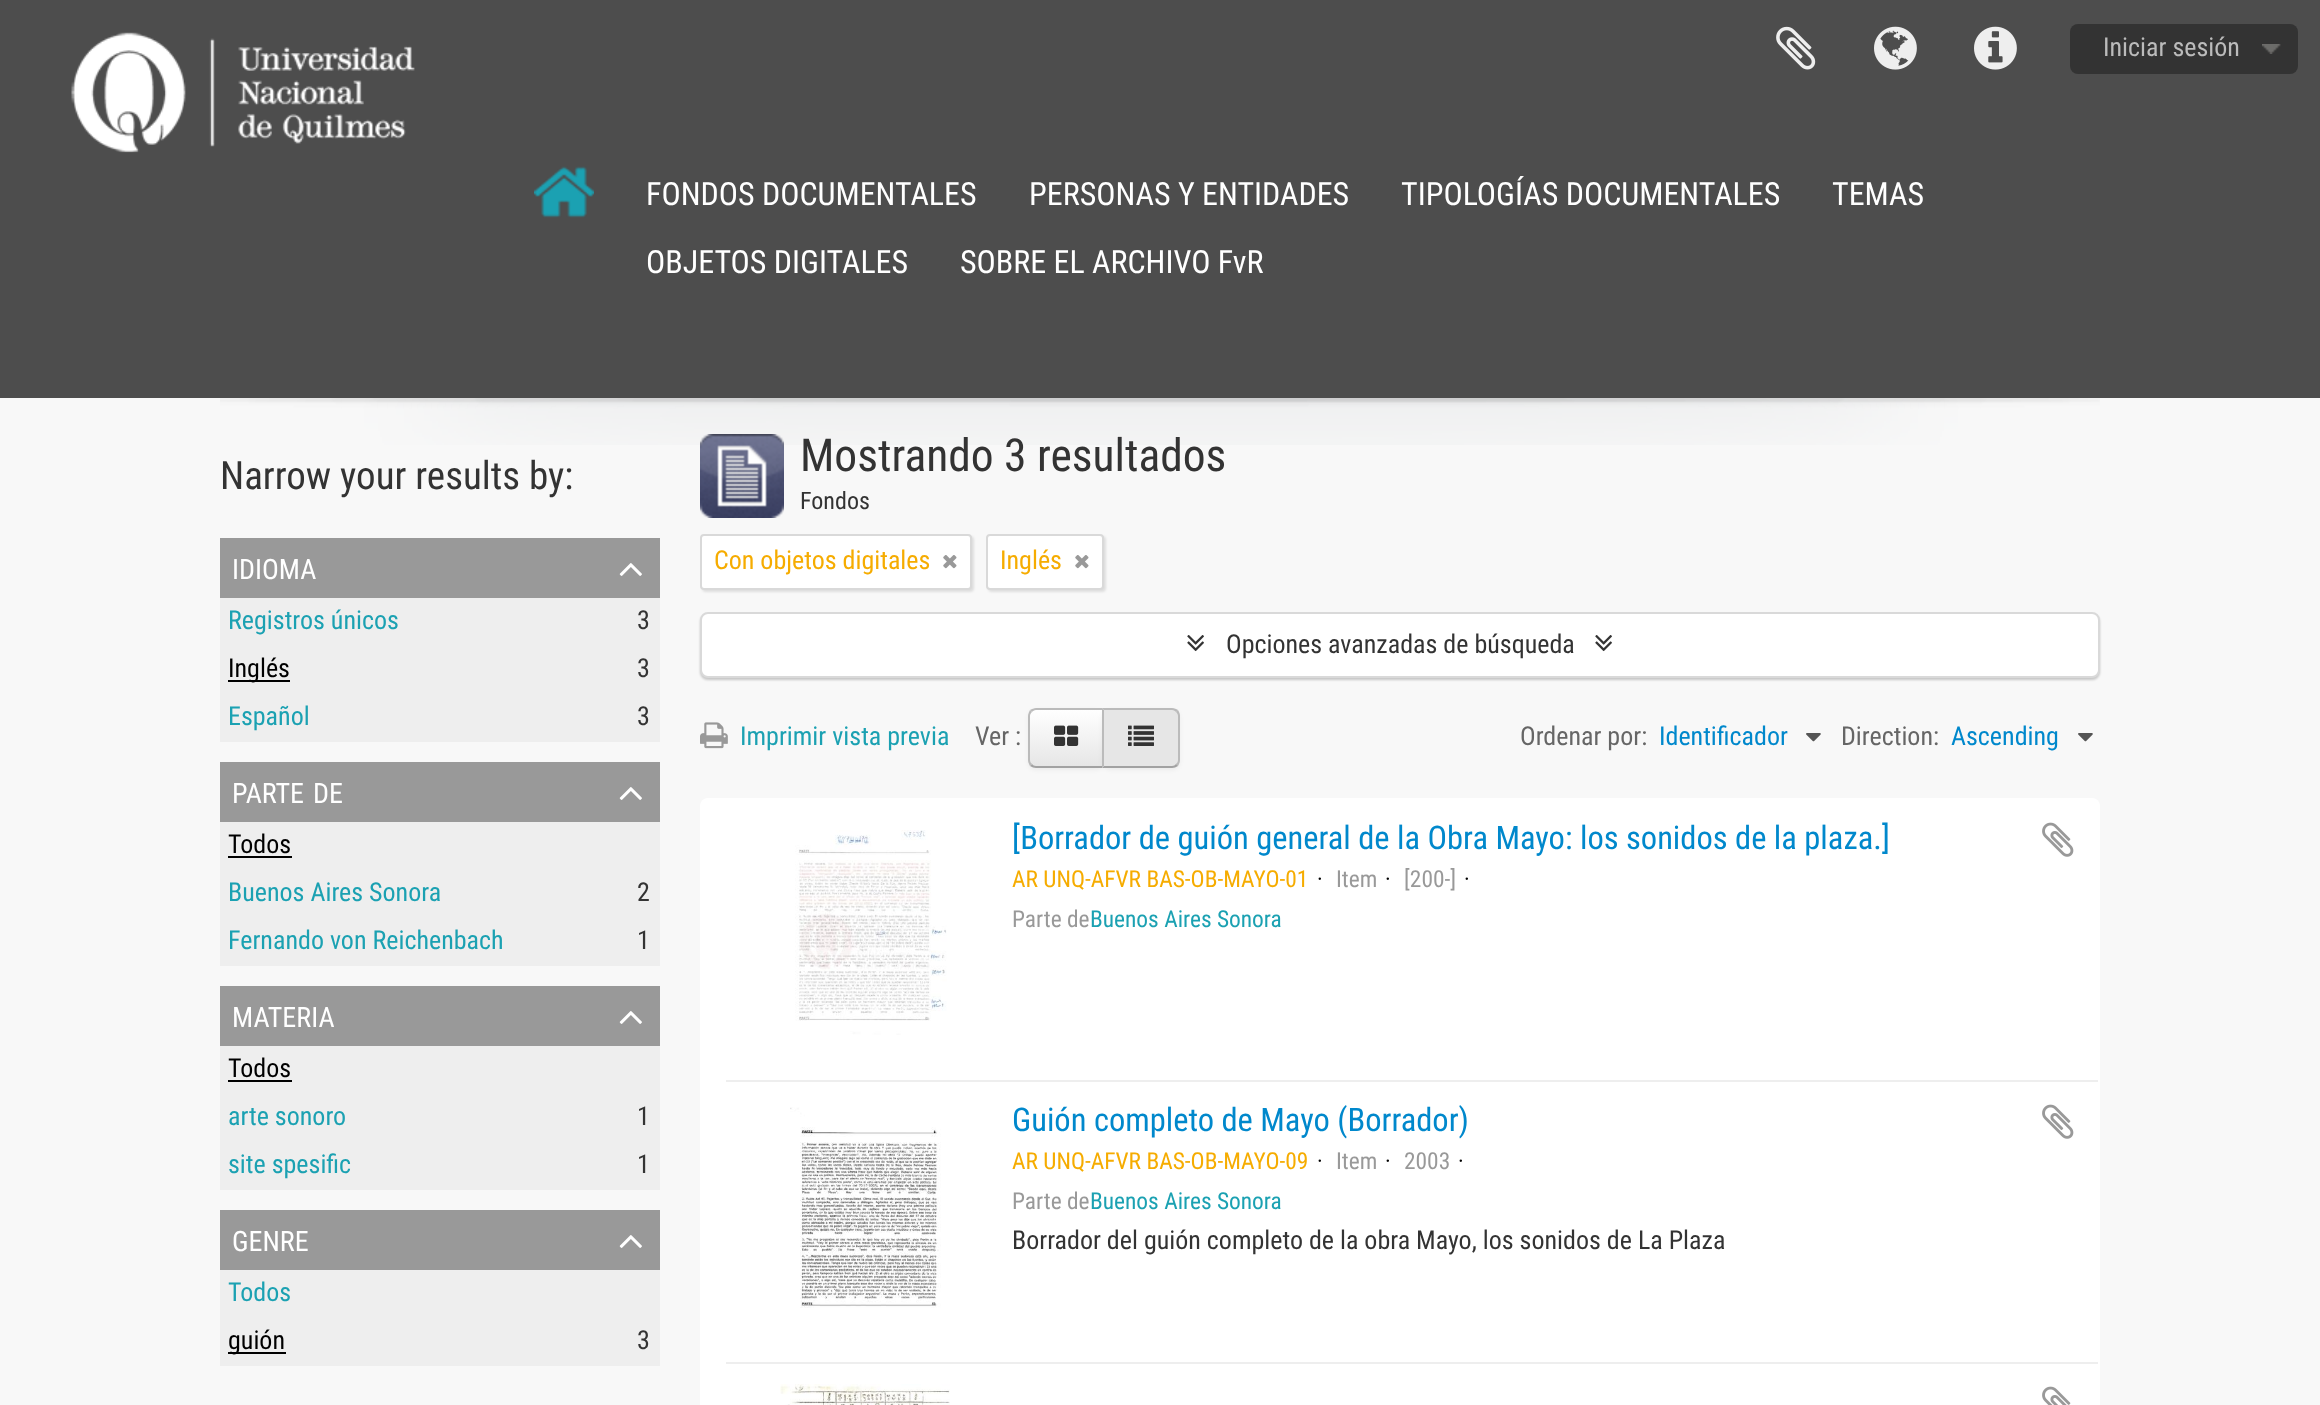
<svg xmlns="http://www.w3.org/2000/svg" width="2320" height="1405">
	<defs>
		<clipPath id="clip1"><path d="M1036 708H1104V768H1036C1031.5 768 1028 764.5 1028 760V716C1028 711.5 1031.5 708 1036 708Z" /></clipPath>
		<linearGradient id="g1" gradientUnits="userSpaceOnUse" x1="1066" y1="710" x2="1066" y2="766"><stop offset="0" stop-color="#FFFFFF" /><stop offset="1" stop-color="#E6E6E6" /></linearGradient>
	</defs>
	<rect width="100%" height="100%" fill="#F8F8F8" />
	<rect x="0" y="0" width="2320" height="398" fill="#4D4D4D" />
	<image x="71" y="32" width="344" height="121" href="assets/img1.png" />
	<image x="1776" y="26" width="40" height="44" href="assets/img2.png" />
	<image x="1874" y="26" width="43" height="44" href="assets/img3.png" />
	<image x="1974" y="26" width="43" height="44" href="assets/img4.png" />
	<rect x="2070" y="24" width="228" height="50" rx="8" fill="#333333" />
	<image x="2262" y="44" width="19" height="10" href="assets/img5.png" />
	<text x="2103" y="56" font-family="Roboto Condensed" font-size="26" fill="#BBBBBB">Iniciar sesión</text>
	<image x="534" y="166" width="60" height="52" href="assets/img6.png" />
	<g font-family="Roboto Condensed" font-size="32" fill="#FFFFFF">
		<text x="646" y="205">FONDOS DOCUMENTALES</text>
		<text x="1029" y="205">PERSONAS Y ENTIDADES</text>
		<text x="1401" y="205">TIPOLOGÍAS DOCUMENTALES</text>
		<text x="1832" y="205">TEMAS</text>
		<text x="646" y="273">OBJETOS DIGITALES</text>
		<text x="960" y="273">SOBRE EL ARCHIVO FvR</text>
	</g>
	<image x="220" y="398" width="1880" height="47" href="assets/img7.png" />
	<text x="220" y="489" font-family="Roboto Condensed" font-size="39" fill="#333333">Narrow your results by:</text>
	<rect x="220" y="538" width="440" height="60" fill="#999999" />
	<text x="232" y="579" font-family="Roboto Condensed" font-size="28" fill="#FFFFFF">IDIOMA</text>
	<image x="619" y="563" width="23" height="13" href="assets/img8.png" />
	<rect x="220" y="598" width="440" height="144" fill="#EEEEEE" />
	<text x="228" y="629" font-family="Roboto Condensed" font-size="26" fill="#1BA1B2">Registros únicos</text>
	<text x="637" y="629" font-family="Roboto Condensed" font-size="26" fill="#333333">3</text>
	<rect x="228" y="680" width="62" height="2" fill="#000000" />
	<text x="228" y="677" font-family="Roboto Condensed" font-size="26" fill="#000000">Inglés</text>
	<text x="637" y="677" font-family="Roboto Condensed" font-size="26" fill="#333333">3</text>
	<text x="228" y="725" font-family="Roboto Condensed" font-size="26" fill="#1BA1B2">Español</text>
	<text x="637" y="725" font-family="Roboto Condensed" font-size="26" fill="#333333">3</text>
	<rect x="220" y="762" width="440" height="60" fill="#999999" />
	<g font-family="Roboto Condensed" font-size="28" fill="#FFFFFF">
		<text x="232" y="803">PARTE</text>
		<text x="313" y="803">DE</text>
	</g>
	<image x="619" y="787" width="23" height="13" href="assets/img8.png" />
	<rect x="220" y="822" width="440" height="144" fill="#EEEEEE" />
	<text x="228" y="853" font-family="Roboto Condensed" font-size="26" fill="#000000">Todos</text>
	<rect x="228" y="856" width="64" height="2" fill="#000000" />
	<text x="228" y="901" font-family="Roboto Condensed" font-size="26" fill="#1BA1B2">Buenos Aires Sonora</text>
	<text x="637" y="901" font-family="Roboto Condensed" font-size="26" fill="#333333">2</text>
	<text x="228" y="949" font-family="Roboto Condensed" font-size="26" fill="#1BA1B2">Fernando von Reichenbach</text>
	<text x="637" y="949" font-family="Roboto Condensed" font-size="26" fill="#333333">1</text>
	<rect x="220" y="986" width="440" height="60" fill="#999999" />
	<text x="232" y="1027" font-family="Roboto Condensed" font-size="28" fill="#FFFFFF">MATERIA</text>
	<image x="619" y="1011" width="23" height="13" href="assets/img8.png" />
	<rect x="220" y="1046" width="440" height="144" fill="#EEEEEE" />
	<text x="228" y="1077" font-family="Roboto Condensed" font-size="26" fill="#000000">Todos</text>
	<rect x="228" y="1080" width="64" height="2" fill="#000000" />
	<text x="228" y="1125" font-family="Roboto Condensed" font-size="26" fill="#1BA1B2">arte sonoro</text>
	<text x="637" y="1125" font-family="Roboto Condensed" font-size="26" fill="#333333">1</text>
	<text x="228" y="1173" font-family="Roboto Condensed" font-size="26" fill="#1BA1B2">site spesific</text>
	<text x="637" y="1173" font-family="Roboto Condensed" font-size="26" fill="#333333">1</text>
	<rect x="220" y="1210" width="440" height="60" fill="#999999" />
	<text x="232" y="1251" font-family="Roboto Condensed" font-size="28" fill="#FFFFFF">GENRE</text>
	<image x="619" y="1235" width="23" height="13" href="assets/img8.png" />
	<rect x="220" y="1270" width="440" height="96" fill="#EEEEEE" />
	<text x="228" y="1301" font-family="Roboto Condensed" font-size="26" fill="#1BA1B2">Todos</text>
	<rect x="228" y="1352" width="58" height="2" fill="#000000" />
	<text x="228" y="1349" font-family="Roboto Condensed" font-size="26" fill="#000000">guión</text>
	<text x="637" y="1349" font-family="Roboto Condensed" font-size="26" fill="#333333">3</text>
	<image x="700" y="434" width="84" height="84" href="assets/img9.png" />
	<text x="800" y="471" font-family="Roboto Condensed" font-size="45.5" fill="#333333">Mostrando 3 resultados</text>
	<text x="800" y="509" font-family="Roboto Condensed" font-size="24" fill="#333333">Fondos</text>
	<rect x="702" y="536" width="272" height="56" rx="4" fill="#000000" fill-opacity="0.1" filter="blur(1px)" />
	<rect x="701" y="535" width="270" height="54" rx="3" fill="#FFFFFF" stroke="#D9D9D9" stroke-width="2" />
	<text x="714" y="569" font-family="Roboto Condensed" font-size="26" fill="#F6AC00">Con objetos digitales</text>
	<image x="943" y="555" width="14" height="14" href="assets/img10.png" />
	<rect x="988" y="536" width="118" height="56" rx="4" fill="#000000" fill-opacity="0.1" filter="blur(1px)" />
	<rect x="987" y="535" width="116" height="54" rx="3" fill="#FFFFFF" stroke="#D9D9D9" stroke-width="2" />
	<text x="1000" y="569" font-family="Roboto Condensed" font-size="26" fill="#F6AC00">Inglés</text>
	<image x="1075" y="555" width="14" height="14" href="assets/img10.png" />
	<rect x="700" y="614" width="1400" height="66" rx="8" fill="#000000" fill-opacity="0.2" filter="blur(1px)" />
	<rect x="701" y="613" width="1398" height="64" rx="7" fill="#FFFFFF" stroke="#D9D9D9" stroke-width="2" />
	<image x="1187" y="635" width="17" height="17" href="assets/img11.png" />
	<text x="1226" y="653" font-family="Roboto Condensed" font-size="26" fill="#333333">Opciones avanzadas de búsqueda</text>
	<image x="1595" y="635" width="17" height="17" href="assets/img11.png" />
	<image x="700" y="722" width="28" height="27" href="assets/img12.png" />
	<text x="740" y="745" font-family="Roboto Condensed" font-size="26" fill="#1BA1B2">Imprimir vista previa</text>
	<text x="975" y="745" font-family="Roboto Condensed" font-size="26" fill="#666666">Ver :</text>
	<rect x="1028" y="710" width="76" height="60" rx="8" fill="#000000" fill-opacity="0.05" filter="blur(2px)" />
	<g clip-path="url(#clip1)">
		<rect x="1028" y="710" width="74" height="56" fill="url(#g1)" />
	</g>
	<path d="M1036 708C1034 708 1032 709 1030 710L1032 712C1033 711 1034 710 1036 710H1102L1104 708Z" fill="#BBBBBB" />
	<path d="M1104 768L1102 766H1036C1034 766 1033 765 1032 764L1030 766C1032 767 1034 768 1036 768Z" fill="#A2A2A2" />
	<path d="M1028 716V760C1028 762 1029 764 1030 766L1032 764C1031 763 1030 762 1030 760V716C1030 714 1031 713 1032 712L1030 710C1029 712 1028 714 1028 716Z" fill="#BBBBBB" />
	<image x="1054" y="725" width="25" height="21" href="assets/img13.png" />
	<rect x="1102" y="710" width="78" height="60" rx="8" fill="#000000" fill-opacity="0.05" filter="blur(2px)" />
	<path d="M1102 708H1172C1176.5 708 1180 711.5 1180 716V760C1180 764.5 1176.5 768 1172 768H1102Z" fill="#E6E6E6" />
	<path d="M1102 708L1104 710H1172C1174 710 1175 711 1176 712L1178 710C1176 709 1174 708 1172 708Z" fill="#BBBBBB" />
	<path d="M1180 760V716C1180 714 1179 712 1178 710L1176 712C1177 713 1178 714 1178 716V760C1178 762 1177 763 1176 764L1178 766C1179 764 1180 762 1180 760Z" fill="#BBBBBB" />
	<path d="M1172 768C1174 768 1176 767 1178 766L1176 764C1175 765 1174 766 1172 766H1104L1102 768Z" fill="#A2A2A2" />
	<path d="M1102 708V768L1104 766V710Z" fill="#BBBBBB" />
	<image x="1128" y="725" width="26" height="21" href="assets/img14.png" />
	<text x="1520" y="745" font-family="Roboto Condensed" font-size="26" fill="#666666">Ordenar por:</text>
	<text x="1659" y="745" font-family="Roboto Condensed" font-size="26" fill="#0088CC">Identificador</text>
	<image x="1806" y="733" width="15" height="9" href="assets/img15.png" />
	<text x="1841" y="745" font-family="Roboto Condensed" font-size="26" fill="#666666">Direction:</text>
	<text x="1951" y="745" font-family="Roboto Condensed" font-size="26" fill="#0088CC">Ascending</text>
	<image x="2078" y="733" width="15" height="9" href="assets/img15.png" />
	<rect x="700" y="798" width="1400" height="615" rx="8" fill="#FFFFFF" />
	<rect x="726" y="1080" width="1372" height="2" fill="#EEEEEE" />
	<image x="795" y="830" width="152" height="205" href="assets/img16.png" />
	<text x="1012" y="849" font-family="Roboto Condensed" font-size="32.5" fill="#0088CC">[Borrador de guión general de la Obra Mayo: los sonidos de la plaza.]</text>
	<image x="2042" y="822" width="32" height="35" href="assets/img17.png" />
	<text x="1012" y="887" font-family="Roboto Condensed" font-size="23.4" fill="#F6AC00">AR UNQ-AFVR BAS-OB-MAYO-01</text>
	<text x="1317" y="887" font-family="Roboto Condensed" font-size="23.4" fill="#000000">·</text>
	<text x="1336" y="887" font-family="Roboto Condensed" font-size="23.4" fill="#999999">Item</text>
	<text x="1385" y="887" font-family="Roboto Condensed" font-size="23.4" fill="#000000">·</text>
	<text x="1404" y="887" font-family="Roboto Condensed" font-size="23.4" fill="#999999">[200-]</text>
	<text x="1464" y="887" font-family="Roboto Condensed" font-size="23.4" fill="#000000">·</text>
	<text x="1012" y="927" font-family="Roboto Condensed" font-size="23.4" fill="#999999">Parte de</text>
	<text x="1090" y="927" font-family="Roboto Condensed" font-size="23.4" fill="#1BA1B2">Buenos Aires Sonora</text>
	<rect x="726" y="1362" width="1372" height="2" fill="#EEEEEE" />
	<image x="790" y="1107" width="151" height="201" href="assets/img18.png" />
	<text x="1012" y="1131" font-family="Roboto Condensed" font-size="32.5" fill="#0088CC">Guión completo de Mayo (Borrador)</text>
	<image x="2042" y="1104" width="32" height="35" href="assets/img17.png" />
	<text x="1012" y="1169" font-family="Roboto Condensed" font-size="23.4" fill="#F6AC00">AR UNQ-AFVR BAS-OB-MAYO-09</text>
	<text x="1317" y="1169" font-family="Roboto Condensed" font-size="23.4" fill="#000000">·</text>
	<text x="1336" y="1169" font-family="Roboto Condensed" font-size="23.4" fill="#999999">Item</text>
	<text x="1385" y="1169" font-family="Roboto Condensed" font-size="23.4" fill="#000000">·</text>
	<text x="1404" y="1169" font-family="Roboto Condensed" font-size="23.4" fill="#999999">2003</text>
	<text x="1458" y="1169" font-family="Roboto Condensed" font-size="23.4" fill="#000000">·</text>
	<text x="1012" y="1209" font-family="Roboto Condensed" font-size="23.4" fill="#999999">Parte de</text>
	<text x="1090" y="1209" font-family="Roboto Condensed" font-size="23.4" fill="#1BA1B2">Buenos Aires Sonora</text>
	<text x="1012" y="1249" font-family="Roboto Condensed" font-size="26" fill="#333333">Borrador del guión completo de la obra Mayo, los sonidos de La Plaza</text>
	<image x="780" y="1384" width="170" height="21" href="assets/img19.png" />
	<image x="2042" y="1386" width="29" height="19" href="assets/img20.png" />
</svg>
